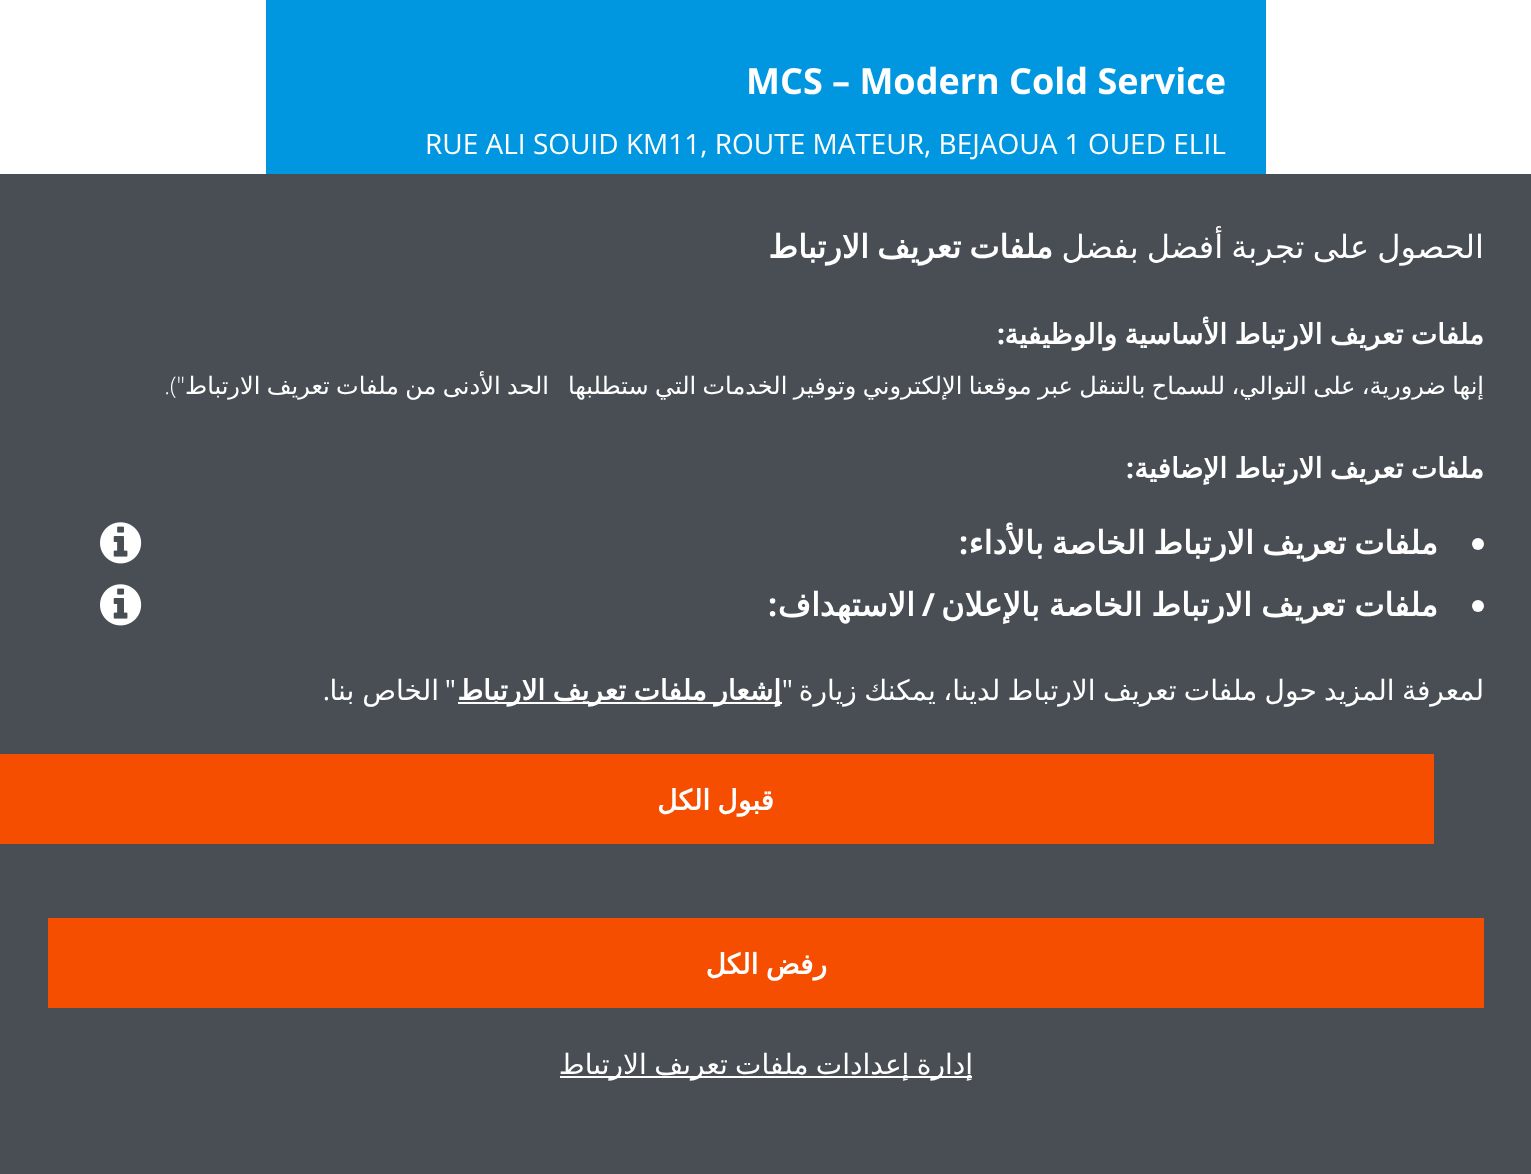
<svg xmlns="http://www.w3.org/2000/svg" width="1531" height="1174">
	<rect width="100%" height="100%" fill="#FFFFFF" />
	<rect x="266" y="0" width="1000" height="174" fill="#0097E0" />
	<text x="746" y="94" font-family="Open Sans" font-size="36" font-weight="700" fill="#FFFFFF">MCS – Modern Cold Service</text>
	<text x="425" y="154" font-family="Open Sans" font-size="28" fill="#FFFFFF">RUE ALI SOUID KM11, ROUTE MATEUR, BEJAOUA 1 OUED ELIL</text>
	<rect x="0" y="174" width="1531" height="1000" fill="#484E54" />
	<text x="1484" y="258" word-spacing="-2" font-family="DejaVu Sans" font-size="32" direction="rtl" fill="#FFFFFF">الحصول على تجربة أفضل بفضل</text>
	<text x="1053" y="258" word-spacing="-2" font-family="DejaVu Sans" font-size="32" font-weight="700" direction="rtl" fill="#FFFFFF">ملفات تعريف الارتباط</text>
	<text x="1484" y="344" word-spacing="-1.5" font-family="DejaVu Sans" font-size="28" font-weight="700" direction="rtl" fill="#FFFFFF">ملفات تعريف الارتباط الأساسية والوظيفية</text>
	<text x="1005" y="344" font-family="Open Sans" font-size="28" font-weight="700" direction="rtl" fill="#FFFFFF">:</text>
	<g font-family="DejaVu Sans" font-size="24" direction="rtl" fill="#FFFFFF">
		<text x="1484" y="394" word-spacing="-1.25">إنها ضرورية، على التوالي، للسماح بالتنقل عبر موقعنا الإلكتروني وتوفير الخدمات التي ستطلبها</text>
		<text x="549" y="394" word-spacing="-1.25">الحد الأدنى من ملفات تعريف الارتباط</text>
	</g>
	<text x="185" y="394" font-family="Open Sans" font-size="24" font-weight="300" direction="rtl" fill="#FFFFFF">").</text>
	<text x="1484" y="478" word-spacing="-1.5" font-family="DejaVu Sans" font-size="28" font-weight="700" direction="rtl" fill="#FFFFFF">ملفات تعريف الارتباط الإضافية</text>
	<text x="1134" y="478" font-family="Open Sans" font-size="28" font-weight="700" direction="rtl" fill="#FFFFFF">:</text>
	<circle cx="1478" cy="544" r="6" fill="#FFFFFF" />
	<text x="1438" y="554" word-spacing="-2" font-family="DejaVu Sans" font-size="32" font-weight="700" direction="rtl" fill="#FFFFFF">ملفات تعريف الارتباط الخاصة بالأداء</text>
	<text x="968" y="554" font-family="Open Sans" font-size="32" font-weight="700" direction="rtl" fill="#FFFFFF">:</text>
	<image x="100" y="522" width="42" height="42" href="assets/img1.png" />
	<circle cx="1478" cy="606" r="6" fill="#FFFFFF" />
	<text x="1438" y="616" word-spacing="-1" font-family="DejaVu Sans" font-size="32" font-weight="700" direction="rtl" fill="#FFFFFF">ملفات تعريف الارتباط الخاصة بالإعلان</text>
	<text x="935" y="616" font-family="Open Sans" font-size="32" font-weight="700" direction="rtl" fill="#FFFFFF">/</text>
	<text x="915" y="616" font-family="DejaVu Sans" font-size="32" font-weight="700" direction="rtl" fill="#FFFFFF">الاستهداف</text>
	<text x="777" y="616" font-family="Open Sans" font-size="32" font-weight="700" direction="rtl" fill="#FFFFFF">:</text>
	<image x="100" y="584" width="42" height="42" href="assets/img1.png" />
	<text x="1484" y="700" word-spacing="-1.5" font-family="DejaVu Sans" font-size="28" direction="rtl" fill="#FFFFFF">لمعرفة المزيد حول ملفات تعريف الارتباط لدينا، يمكنك زيارة</text>
	<text x="793" y="700" font-family="Open Sans" font-size="28" direction="rtl" fill="#FFFFFF">"</text>
	<rect x="458" y="702" width="324" height="2" fill="#FFFFFF" />
	<text x="781" y="700" word-spacing="-1.5" font-family="DejaVu Sans" font-size="28" font-weight="700" direction="rtl" fill="#FFFFFF">إشعار ملفات تعريف الارتباط</text>
	<text x="456" y="700" font-family="Open Sans" font-size="28" direction="rtl" fill="#FFFFFF">"</text>
	<text x="439" y="700" word-spacing="-1" font-family="DejaVu Sans" font-size="28" direction="rtl" fill="#FFFFFF">الخاص بنا</text>
	<text x="330" y="700" font-family="Open Sans" font-size="28" direction="rtl" fill="#FFFFFF">.</text>
	<rect x="0" y="754" width="1434" height="90" fill="#F54E00" />
	<text x="774" y="810" word-spacing="-1.5" font-family="DejaVu Sans" font-size="28" font-weight="700" direction="rtl" fill="#FFFFFF">قبول الكل</text>
	<rect x="48" y="918" width="1436" height="90" fill="#F54E00" />
	<text x="827" y="974" word-spacing="-1.5" font-family="DejaVu Sans" font-size="28" font-weight="700" direction="rtl" fill="#FFFFFF">رفض الكل</text>
	<rect x="560" y="1076" width="412" height="2" fill="#FFFFFF" />
	<text x="973" y="1074" word-spacing="-1.5" font-family="DejaVu Sans" font-size="28" direction="rtl" fill="#FFFFFF">إدارة إعدادات ملفات تعريف الارتباط</text>
</svg>
